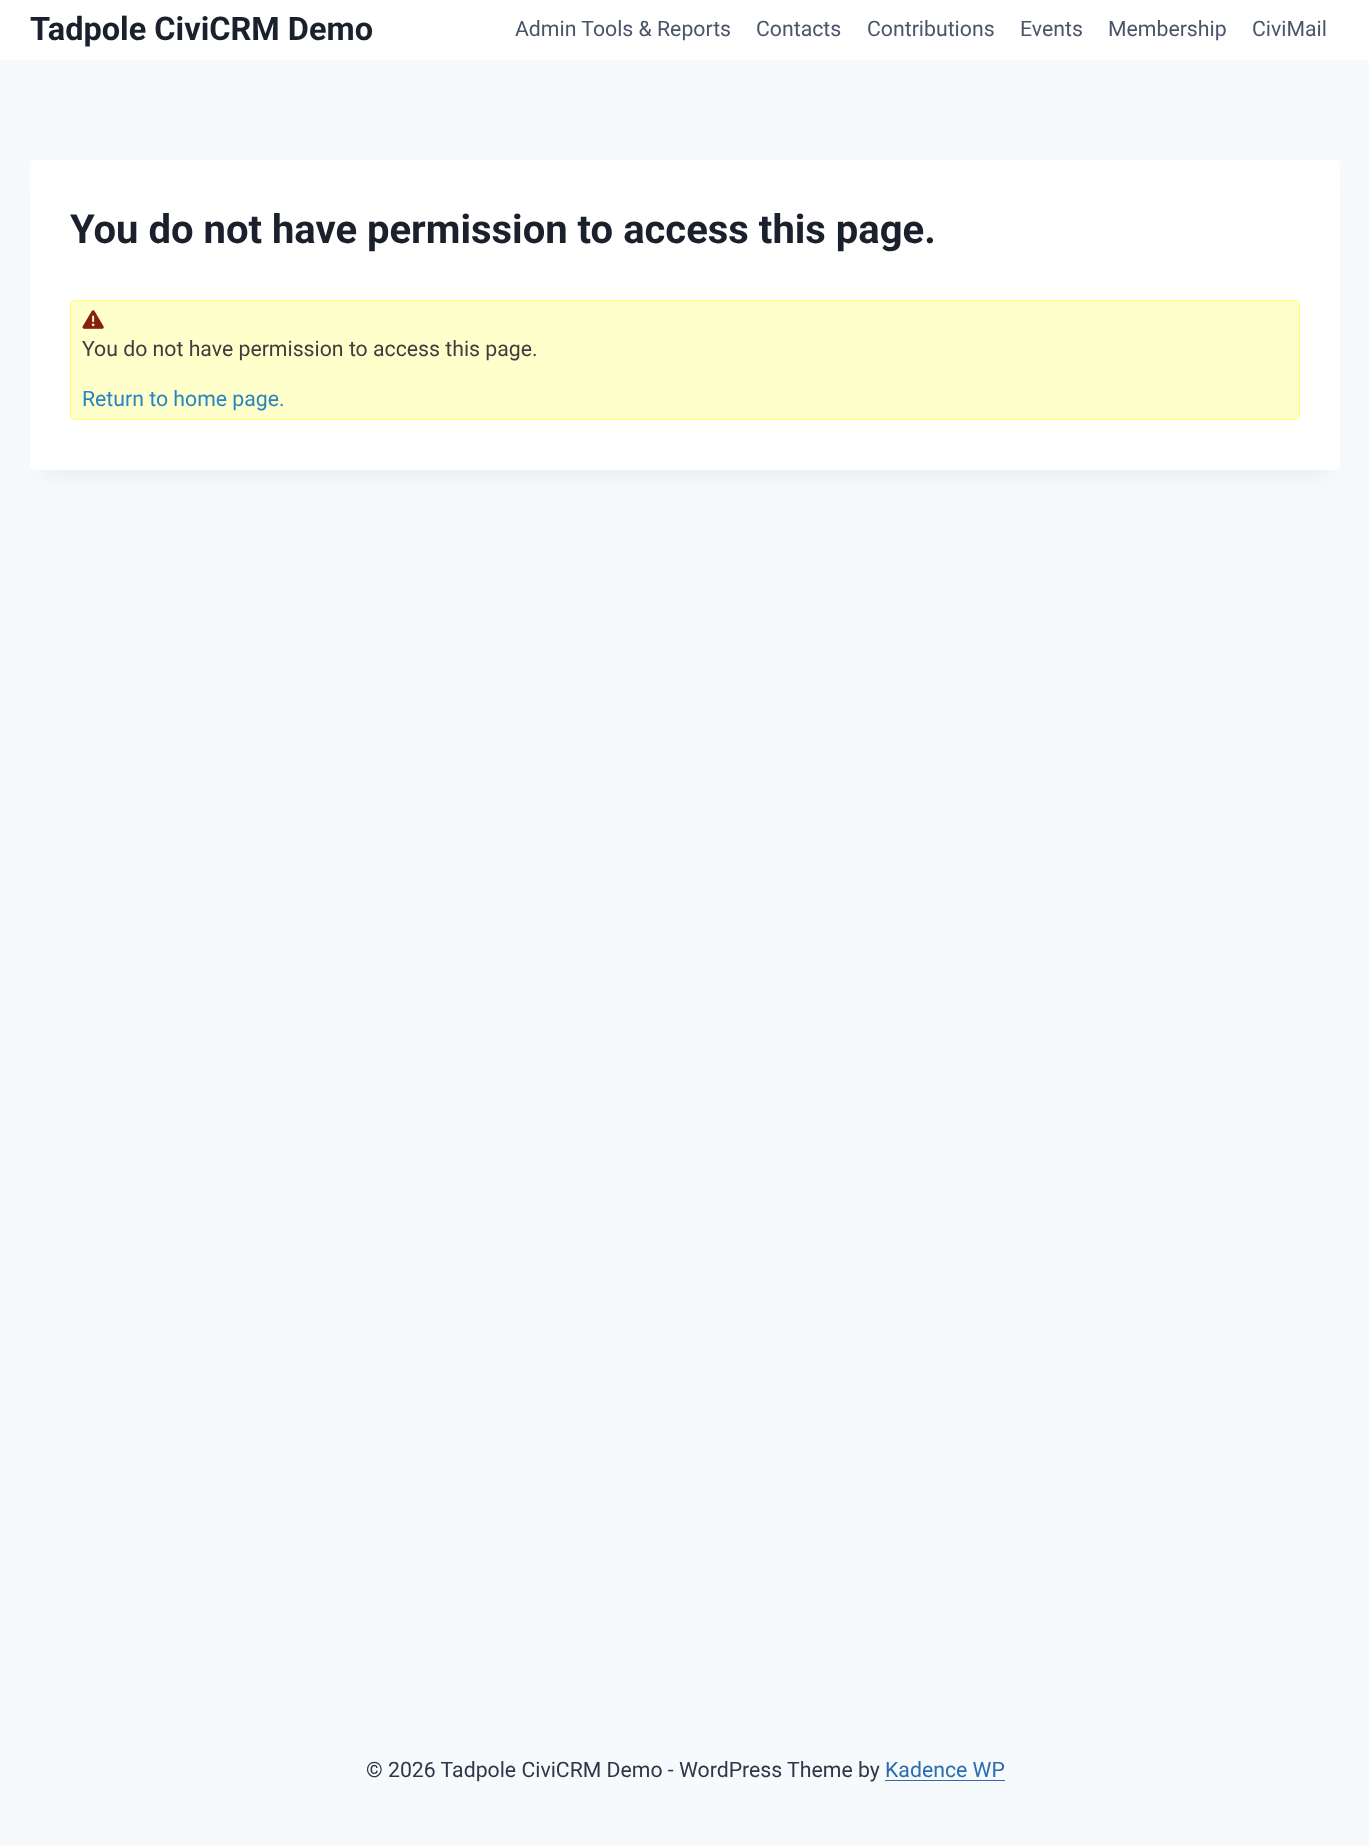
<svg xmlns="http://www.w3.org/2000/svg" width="1369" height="1846">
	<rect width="100%" height="100%" fill="#F7FAFC" />
	<rect x="0" y="0" width="1369" height="60" fill="#FFFFFF" />
	<text x="30" y="40" font-family="Roboto" font-size="32.5" font-weight="700" fill="#1A202C">Tadpole CiviCRM Demo</text>
	<g font-family="Roboto" font-size="21.25" fill="#4A5568">
		<text x="515" y="36">Admin Tools &amp; Reports</text>
		<text x="756" y="36">Contacts</text>
		<text x="867" y="36">Contributions</text>
		<text x="1020" y="36">Events</text>
		<text x="1108" y="36">Membership</text>
		<text x="1252" y="36">CiviMail</text>
	</g>
	<rect x="43" y="191" width="1285" height="285" fill="#000000" fill-opacity="0.05" filter="blur(9.5px)" />
	<rect x="30" y="160" width="1310" height="310" rx="5" fill="#FFFFFF" />
	<text x="70" y="243" font-family="Roboto" font-size="40" font-weight="700" fill="#1A202C">You do not have permission to access this page.</text>
	<rect x="70.5" y="300.5" width="1229" height="119" rx="4.5" fill="#FFFFCC" stroke="#FFFF66" />
	<image x="82" y="310" width="22" height="19" href="assets/img1.png" />
	<text x="82" y="356" font-family="Roboto" font-size="21.25" fill="#3E3E3E">You do not have permission to access this page.</text>
	<text x="82" y="406" font-family="Roboto" font-size="21.25" fill="#2786C2">Return to home page.</text>
	<text x="366" y="1777" font-family="Roboto" font-size="21.25" fill="#2D3748">© 2026 Tadpole CiviCRM Demo - WordPress Theme by</text>
	<text x="885" y="1777" font-family="Roboto" font-size="21.25" fill="#2B6CB0">Kadence WP</text>
	<rect x="885" y="1780" width="120" height="1" fill="#2B6CB0" />
</svg>
